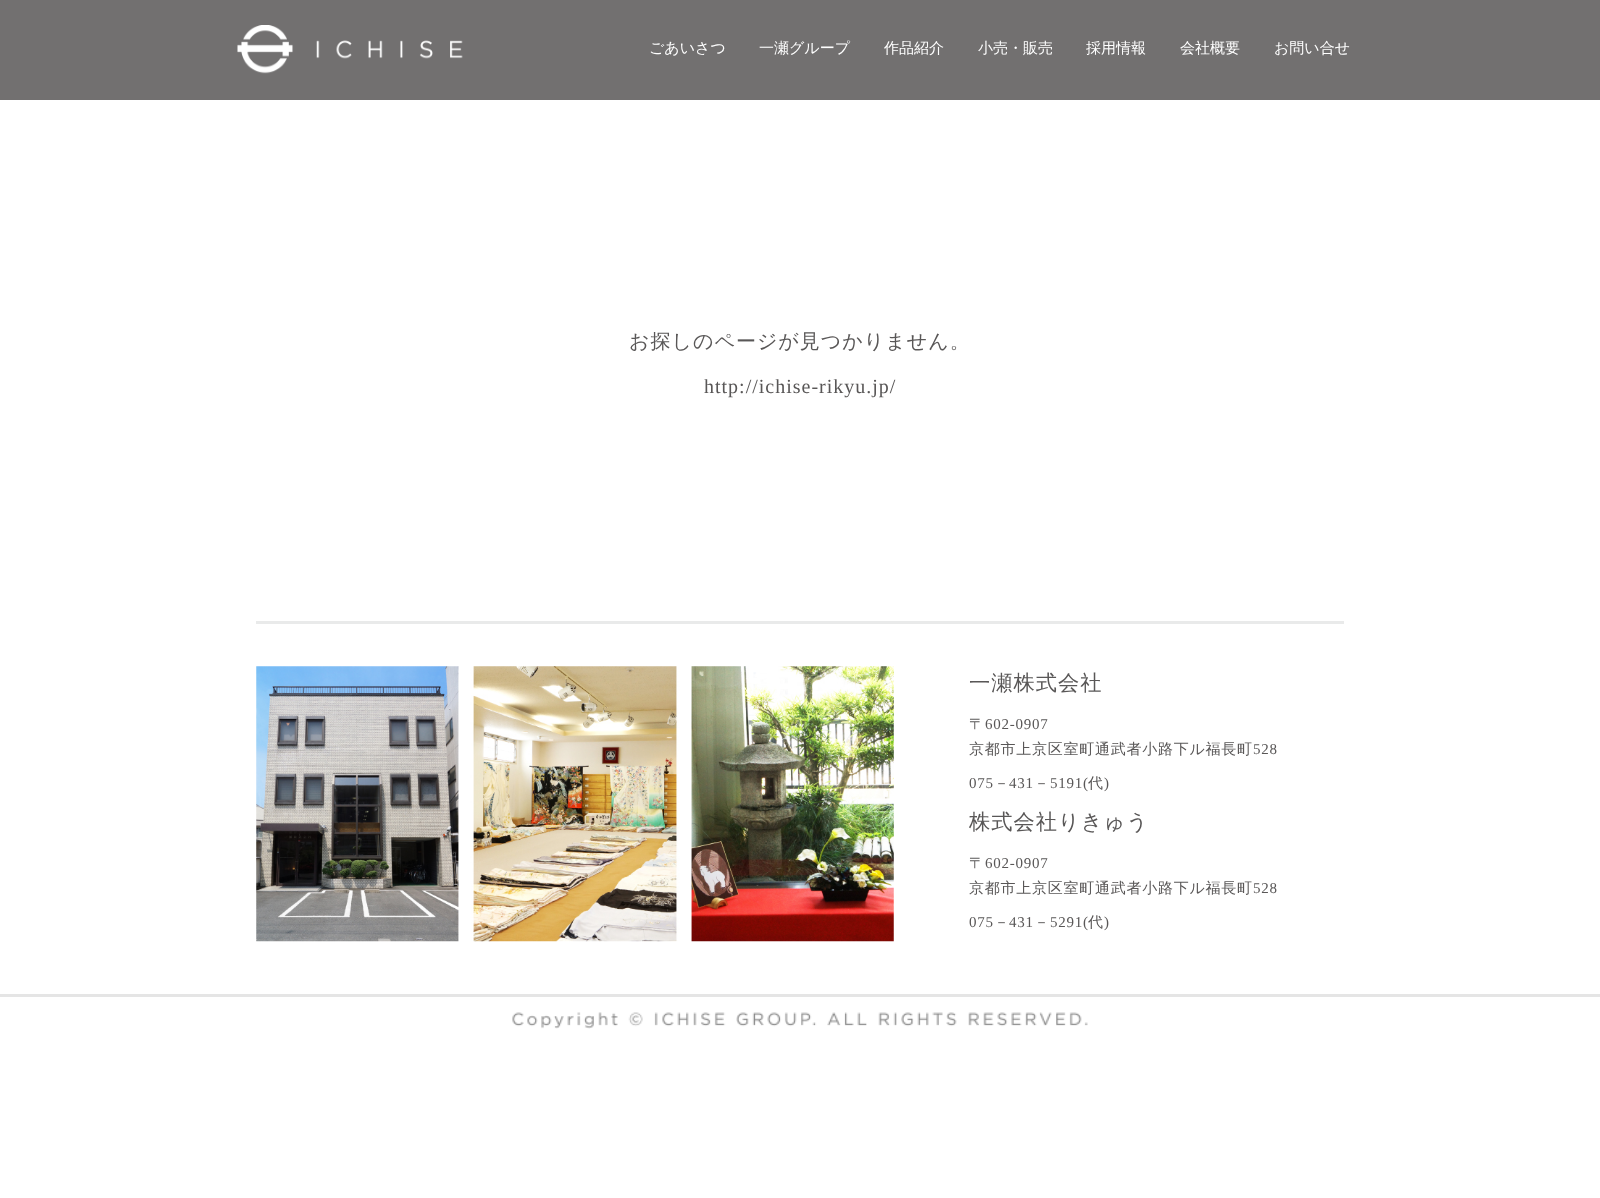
<svg xmlns="http://www.w3.org/2000/svg" width="1600" height="1198">
	<rect width="100%" height="100%" fill="#FFFFFF" />
	<rect x="0" y="0" width="1600" height="100" fill="#727070" />
	<image x="237" y="25" width="226" height="49" href="assets/img1.png" />
	<g font-family="WenQuanYi Zen Hei" font-size="15" font-weight="500" fill="#FFFFFF">
		<text x="649" y="53">ごあいさつ</text>
		<text x="759" y="53">一瀬グループ</text>
		<text x="884" y="53">作品紹介</text>
		<text x="978" y="53">小売・販売</text>
		<text x="1086" y="53">採用情報</text>
		<text x="1180" y="53">会社概要</text>
		<text x="1274" y="53">お問い合せ</text>
	</g>
	<text x="629" y="348" font-family="WenQuanYi Zen Hei" font-size="20" font-weight="500" letter-spacing="1" fill="#595757">お探しのページが見つかりません。</text>
	<text x="704" y="393" font-family="Liberation Serif" font-size="20" letter-spacing="1" fill="#595757">http://ichise-rikyu.jp/</text>
	<image x="256" y="666" width="638" height="276" href="assets/img2.png" />
	<rect x="256" y="621" width="1088" height="3" fill="#E9EAEA" />
	<text x="969" y="690" font-family="WenQuanYi Zen Hei" font-size="21.25" font-weight="500" letter-spacing="1" fill="#595757">一瀬株式会社</text>
	<text x="969" y="729" font-family="WenQuanYi Zen Hei" font-size="15" font-weight="500" letter-spacing="0.75" fill="#595757">〒</text>
	<text x="985" y="729" font-family="Liberation Serif" font-size="15" letter-spacing="0.75" fill="#595757">602-0907</text>
	<text x="969" y="754" font-family="WenQuanYi Zen Hei" font-size="15" font-weight="500" letter-spacing="0.75" fill="#595757">京都市上京区室町通武者小路下ル福長町</text>
	<g font-family="Liberation Serif" font-size="15" letter-spacing="0.75" fill="#595757">
		<text x="1253" y="754">528</text>
		<text x="969" y="788">075</text>
	</g>
	<text x="994" y="788" font-family="WenQuanYi Zen Hei" font-size="15" font-weight="500" letter-spacing="0.75" fill="#595757">－</text>
	<text x="1009" y="788" font-family="Liberation Serif" font-size="15" letter-spacing="0.75" fill="#595757">431</text>
	<text x="1034" y="788" font-family="WenQuanYi Zen Hei" font-size="15" font-weight="500" letter-spacing="0.75" fill="#595757">－</text>
	<text x="1050" y="788" font-family="Liberation Serif" font-size="15" letter-spacing="0.75" fill="#595757">5191(</text>
	<text x="1088" y="788" font-family="WenQuanYi Zen Hei" font-size="15" font-weight="500" letter-spacing="0.75" fill="#595757">代</text>
	<text x="1104" y="788" font-family="Liberation Serif" font-size="15" letter-spacing="0.75" fill="#595757">)</text>
	<text x="969" y="829" font-family="WenQuanYi Zen Hei" font-size="21.25" font-weight="500" letter-spacing="1" fill="#595757">株式会社りきゅう</text>
	<text x="969" y="868" font-family="WenQuanYi Zen Hei" font-size="15" font-weight="500" letter-spacing="0.75" fill="#595757">〒</text>
	<text x="985" y="868" font-family="Liberation Serif" font-size="15" letter-spacing="0.75" fill="#595757">602-0907</text>
	<text x="969" y="893" font-family="WenQuanYi Zen Hei" font-size="15" font-weight="500" letter-spacing="0.75" fill="#595757">京都市上京区室町通武者小路下ル福長町</text>
	<g font-family="Liberation Serif" font-size="15" letter-spacing="0.75" fill="#595757">
		<text x="1253" y="893">528</text>
		<text x="969" y="927">075</text>
	</g>
	<text x="994" y="927" font-family="WenQuanYi Zen Hei" font-size="15" font-weight="500" letter-spacing="0.75" fill="#595757">－</text>
	<text x="1009" y="927" font-family="Liberation Serif" font-size="15" letter-spacing="0.75" fill="#595757">431</text>
	<text x="1034" y="927" font-family="WenQuanYi Zen Hei" font-size="15" font-weight="500" letter-spacing="0.75" fill="#595757">－</text>
	<text x="1050" y="927" font-family="Liberation Serif" font-size="15" letter-spacing="0.75" fill="#595757">5291(</text>
	<text x="1088" y="927" font-family="WenQuanYi Zen Hei" font-size="15" font-weight="500" letter-spacing="0.75" fill="#595757">代</text>
	<text x="1104" y="927" font-family="Liberation Serif" font-size="15" letter-spacing="0.75" fill="#595757">)</text>
	<rect x="0" y="994" width="1600" height="3" fill="#E5E5E5" />
	<image x="512" y="1012" width="576" height="17" href="assets/img3.png" />
</svg>
